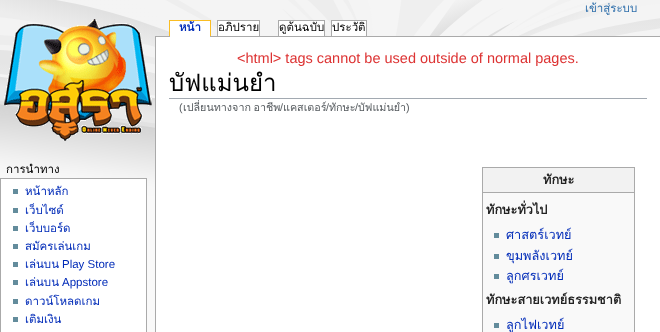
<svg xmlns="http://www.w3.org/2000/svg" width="660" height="332">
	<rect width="100%" height="100%" fill="#F9F9F9" />
	<image x="0" y="0" width="660" height="210" href="assets/img1.png" />
	<text x="585" y="12" font-family="Loma" font-size="11.5" fill="#2F6FAB">เข้าสู่ระบบ</text>
	<image x="4" y="19" width="148" height="122" href="assets/img2.png" />
	<rect x="155" y="36" width="505" height="1" fill="#AAAAAA" />
	<rect x="170" y="21" width="40" height="16" fill="#FFFFFF" />
	<text x="179" y="31" font-family="Loma" font-size="11.5" font-weight="700" fill="#002BB8">หน้า</text>
	<rect x="169" y="20" width="42" height="1" fill="#FABD23" />
	<rect x="210" y="20" width="1" height="16" fill="#FABD23" />
	<rect x="169" y="20" width="1" height="16" fill="#FABD23" />
	<rect x="218" y="21" width="41" height="15" fill="#FFFFFF" />
	<text x="218" y="31" font-family="Loma" font-size="11.5" fill="#000000">อภิปราย</text>
	<rect x="217" y="20" width="43" height="1" fill="#AAAAAA" />
	<rect x="259" y="20" width="1" height="16" fill="#AAAAAA" />
	<rect x="217" y="20" width="1" height="16" fill="#AAAAAA" />
	<rect x="279" y="21" width="45" height="15" fill="#FFFFFF" />
	<rect x="278" y="20" width="47" height="1" fill="#AAAAAA" />
	<rect x="278" y="20" width="1" height="16" fill="#AAAAAA" />
	<text x="279" y="31" font-family="Loma" font-size="11.5" fill="#000000">ดูต้นฉบับ</text>
	<rect x="324" y="20" width="1" height="16" fill="#AAAAAA" />
	<rect x="332" y="21" width="34" height="15" fill="#FFFFFF" />
	<text x="332" y="31" font-family="Loma" font-size="11.5" fill="#000000">ประวัติ</text>
	<rect x="331" y="20" width="36" height="1" fill="#AAAAAA" />
	<rect x="366" y="20" width="1" height="16" fill="#AAAAAA" />
	<rect x="331" y="20" width="1" height="16" fill="#AAAAAA" />
	<text x="6" y="173" font-family="Loma" font-size="11.5" fill="#000000">การนำทาง</text>
	<rect x="0.5" y="178.5" width="146" height="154" fill="#FFFFFF" stroke="#AAAAAA" />
	<rect x="13" y="189" width="5" height="5" fill="#638C9C" />
	<text x="25" y="195" font-family="Loma" font-size="11.5" fill="#002BB8">หน้าหลัก</text>
	<rect x="13" y="208" width="5" height="5" fill="#638C9C" />
	<text x="25" y="214" font-family="Loma" font-size="11.5" fill="#002BB8">เว็บไซด์</text>
	<rect x="13" y="226" width="5" height="5" fill="#638C9C" />
	<text x="25" y="232" font-family="Loma" font-size="11.5" fill="#002BB8">เว็บบอร์ด</text>
	<rect x="13" y="244" width="5" height="5" fill="#638C9C" />
	<text x="25" y="250" font-family="Loma" font-size="11.5" fill="#002BB8">สมัครเล่นเกม</text>
	<rect x="13" y="262" width="5" height="5" fill="#638C9C" />
	<text x="25" y="268" font-family="Loma" font-size="11.5" fill="#002BB8">เล่นบน</text>
	<text x="62" y="268" font-family="Liberation Sans" font-size="11.5" fill="#002BB8">Play Store</text>
	<rect x="13" y="280" width="5" height="5" fill="#638C9C" />
	<text x="25" y="286" font-family="Loma" font-size="11.5" fill="#002BB8">เล่นบน</text>
	<text x="62" y="286" font-family="Liberation Sans" font-size="11.5" fill="#002BB8">Appstore</text>
	<rect x="13" y="299" width="5" height="5" fill="#638C9C" />
	<text x="25" y="305" font-family="Loma" font-size="11.5" fill="#002BB8">ดาวน์โหลดเกม</text>
	<rect x="13" y="317" width="5" height="5" fill="#638C9C" />
	<text x="25" y="323" font-family="Loma" font-size="11.5" fill="#002BB8">เติมเงิน</text>
	<rect x="156" y="37" width="504" height="295" fill="#FFFFFF" />
	<rect x="155" y="36" width="1" height="296" fill="#AAAAAA" />
	<text x="237" y="63" font-family="Liberation Sans" font-size="14.5" fill="#DD3333">&lt;html&gt; tags cannot be used outside of normal pages.</text>
	<rect x="169" y="98" width="478" height="1" fill="#A2A9B1" />
	<text x="169" y="91" font-family="Loma" font-size="24" fill="#000000">บัฟแม่นยำ</text>
	<text x="179" y="111" font-family="Liberation Sans" font-size="10.75" fill="#54595D">(</text>
	<text x="183" y="111" word-spacing="-1" font-family="Loma" font-size="10.75" fill="#54595D">เปลี่ยนทางจาก อาชีพ</text>
	<text x="280" y="111" font-family="Liberation Sans" font-size="10.75" fill="#54595D">/</text>
	<text x="283" y="111" font-family="Loma" font-size="10.75" fill="#54595D">แคสเตอร์</text>
	<text x="326" y="111" font-family="Liberation Sans" font-size="10.75" fill="#54595D">/</text>
	<text x="329" y="111" font-family="Loma" font-size="10.75" fill="#54595D">ทักษะ</text>
	<text x="355" y="111" font-family="Liberation Sans" font-size="10.75" fill="#54595D">/</text>
	<text x="358" y="111" font-family="Loma" font-size="10.75" fill="#54595D">บัฟแม่นยำ</text>
	<text x="406" y="111" font-family="Liberation Sans" font-size="10.75" fill="#54595D">)</text>
	<rect x="483" y="193" width="151" height="139" fill="#F9F9F9" />
	<rect x="482" y="167" width="153" height="1" fill="#AAAAAA" />
	<rect x="634" y="167" width="1" height="165" fill="#AAAAAA" />
	<rect x="482" y="167" width="1" height="165" fill="#AAAAAA" />
	<rect x="483" y="168" width="151" height="24" fill="#F2F2F2" />
	<text x="543" y="184" font-family="Loma" font-size="12.75" font-weight="700" fill="#222222">ทักษะ</text>
	<rect x="482" y="192" width="153" height="1" fill="#AAAAAA" />
	<text x="486" y="214" font-family="Loma" font-size="12.75" font-weight="700" fill="#222222">ทักษะทั่วไป</text>
	<rect x="494" y="233" width="5" height="5" fill="#638C9C" />
	<text x="506" y="239" font-family="Loma" font-size="12.75" fill="#002BB8">ศาสตร์เวทย์</text>
	<rect x="494" y="254" width="5" height="5" fill="#638C9C" />
	<text x="506" y="260" font-family="Loma" font-size="12.75" fill="#002BB8">ขุมพลังเวทย์</text>
	<rect x="494" y="274" width="5" height="5" fill="#638C9C" />
	<text x="506" y="280" font-family="Loma" font-size="12.75" fill="#002BB8">ลูกศรเวทย์</text>
	<text x="486" y="304" font-family="Loma" font-size="12.75" font-weight="700" fill="#222222">ทักษะสายเวทย์ธรรมชาติ</text>
	<rect x="494" y="323" width="5" height="5" fill="#638C9C" />
	<text x="506" y="329" font-family="Loma" font-size="12.75" fill="#002BB8">ลูกไฟเวทย์</text>
</svg>
